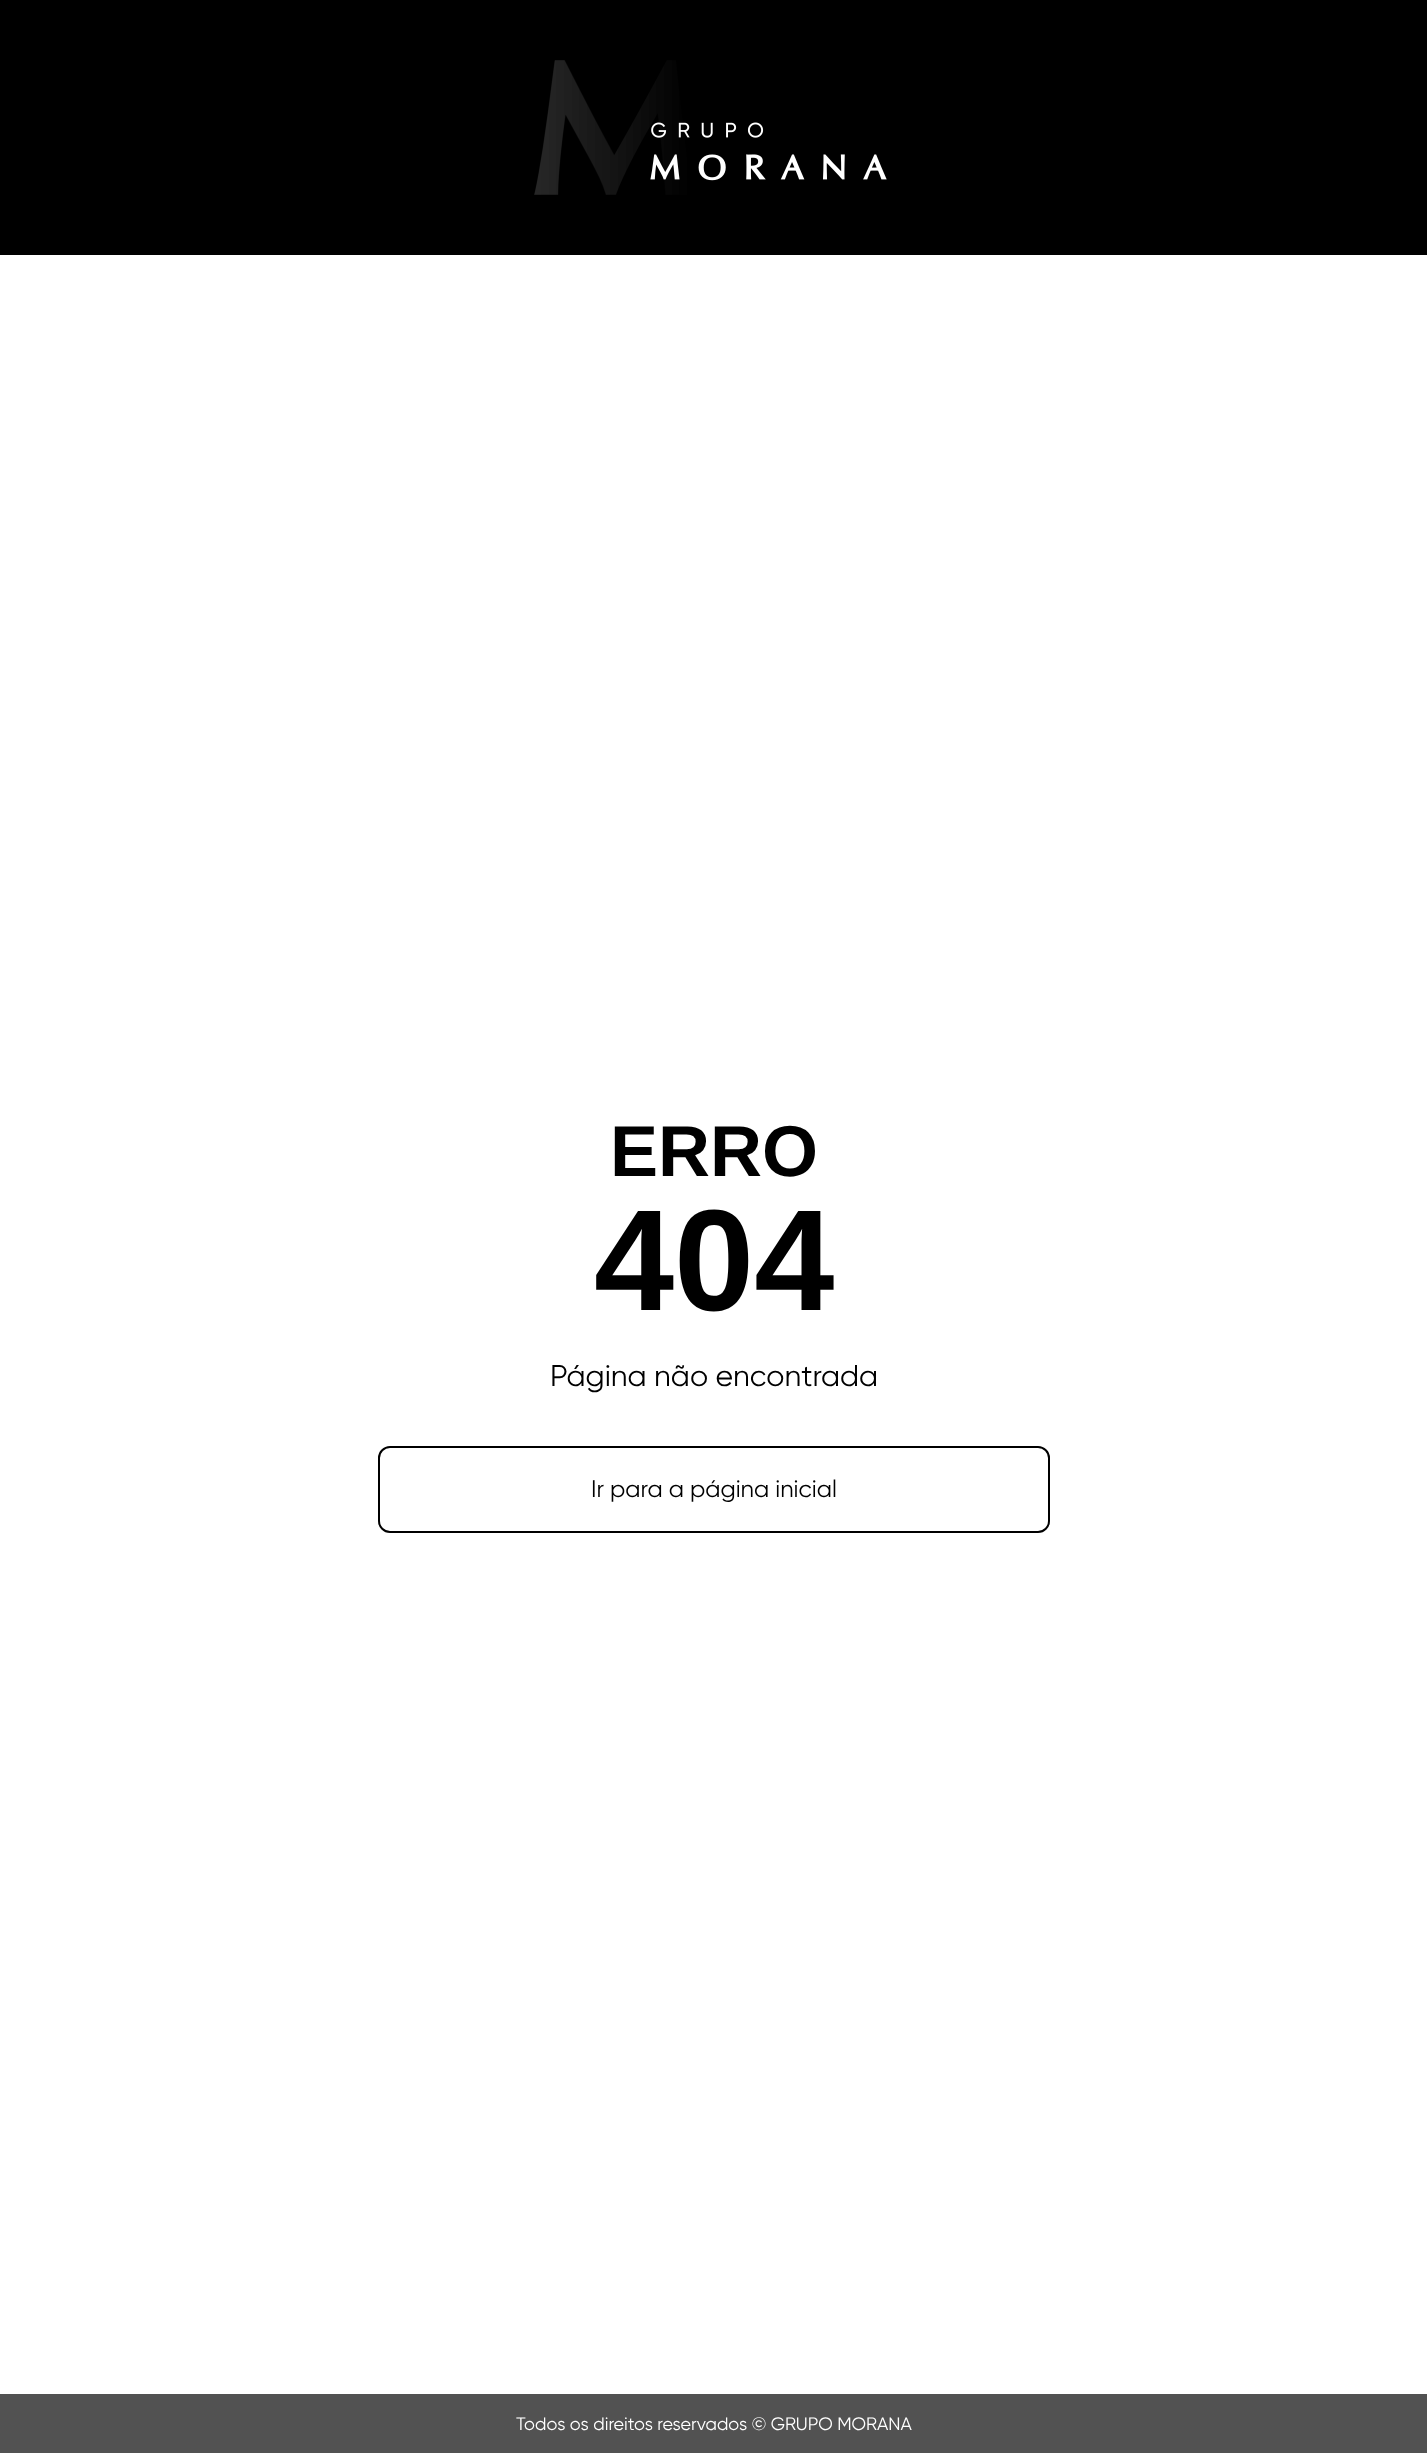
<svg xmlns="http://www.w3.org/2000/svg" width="1427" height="2453">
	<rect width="100%" height="100%" fill="#FFFFFF" />
	<rect x="0" y="0" width="1427" height="255" fill="#000000" />
	<image x="534" y="60" width="353" height="135" href="assets/img1.png" />
	<text x="610" y="1176" font-family="Liberation Sans" font-size="72" font-weight="700" fill="#000000">ERRO</text>
	<text x="594" y="1310" font-family="Liberation Sans" font-size="144" font-weight="700" fill="#000000">404</text>
	<text x="550" y="1386" font-family="Gilroy" font-size="30" fill="#000000">Página não encontrada</text>
	<rect x="379" y="1447" width="670" height="85" rx="11" fill="none" stroke="#000000" stroke-width="2" />
	<text x="591" y="1497" font-family="Gilroy" font-size="24" fill="#000000">Ir para a página inicial</text>
	<rect x="0" y="2394" width="1427" height="59" fill="#525252" />
	<text x="516" y="2430" font-family="Gilroy" font-size="18" fill="#FFFFFF">Todos os direitos reservados © GRUPO MORANA</text>
</svg>
